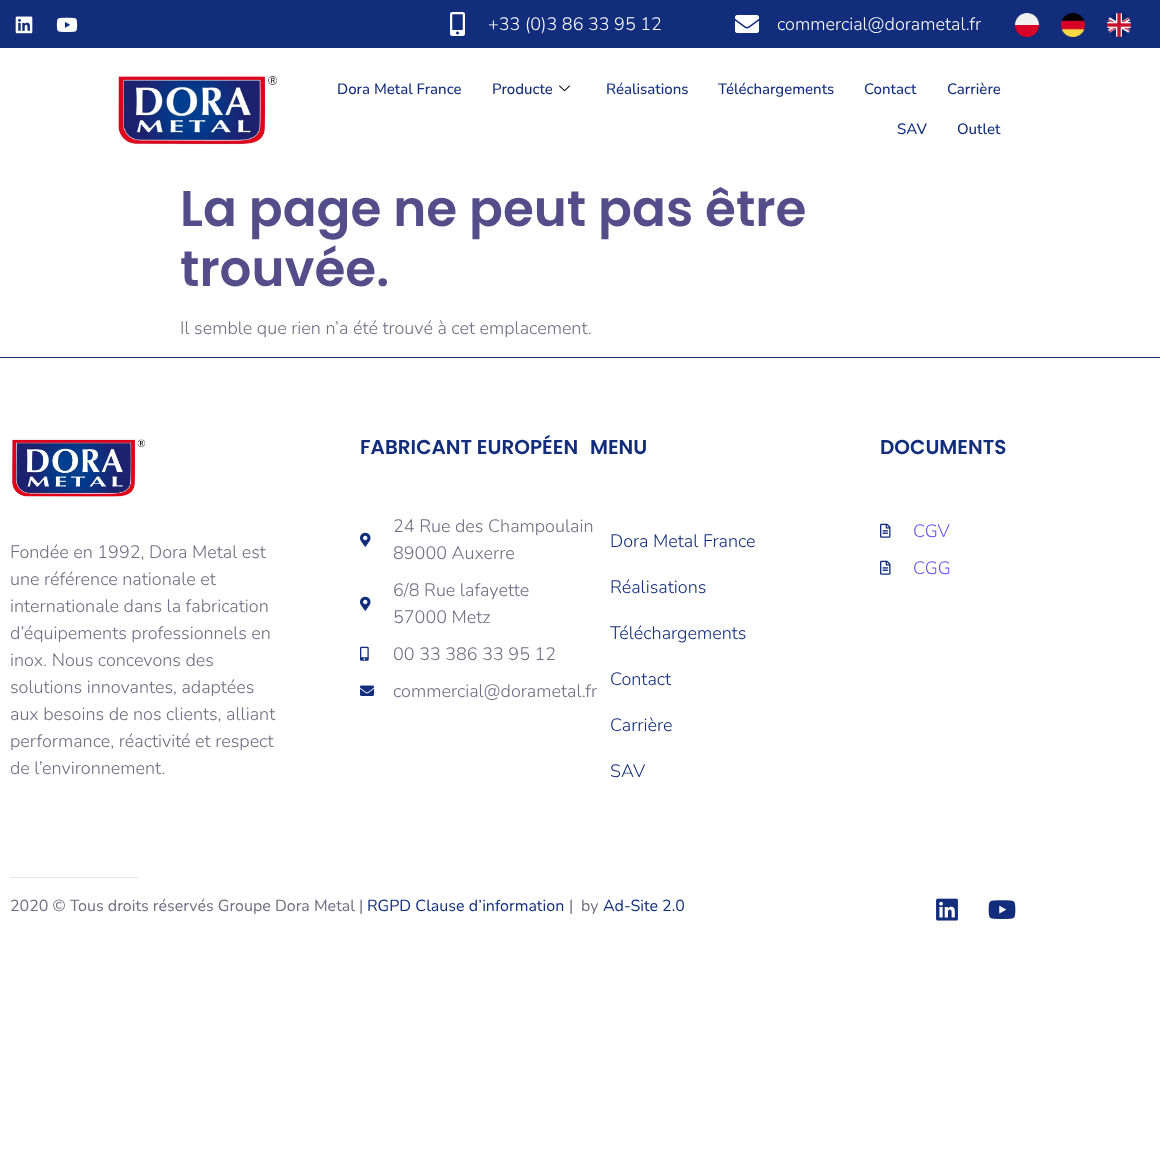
<svg xmlns="http://www.w3.org/2000/svg" width="1160" height="1149">
	<rect width="100%" height="100%" fill="#FFFFFF" />
	<rect x="0" y="0" width="1160" height="48" fill="#122D7C" />
	<image x="15" y="16" width="18" height="18" href="assets/img1.png" />
	<image x="56" y="17" width="22" height="15" href="assets/img2.png" />
	<image x="450" y="12" width="15" height="24" href="assets/img3.png" />
	<text x="488" y="30" font-family="Nunito" font-size="18" font-weight="300" fill="#FEFEFE">+33 (0)3 86 33 95 12</text>
	<image x="735" y="15" width="24" height="18" href="assets/img4.png" />
	<text x="777" y="30" font-family="Nunito" font-size="18" font-weight="300" fill="#FEFEFE">commercial@dorametal.fr</text>
	<image x="1015" y="13" width="24" height="24" href="assets/img5.png" />
	<image x="1061" y="13" width="24" height="24" href="assets/img6.png" />
	<image x="1107" y="13" width="24" height="24" href="assets/img7.png" />
	<image x="118" y="75" width="159" height="70" href="assets/img8.png" />
	<g font-family="Nunito" font-size="15" font-weight="500" fill="#122D7C">
		<text x="337" y="94">Dora Metal France</text>
		<text x="492" y="94">Producte</text>
	</g>
	<image x="559" y="85" width="11" height="7" href="assets/img9.png" />
	<g font-family="Nunito" font-size="15" font-weight="500" fill="#122D7C">
		<text x="606" y="94">Réalisations</text>
		<text x="718" y="94">Téléchargements</text>
		<text x="864" y="94">Contact</text>
		<text x="947" y="94">Carrière</text>
		<text x="897" y="134">SAV</text>
		<text x="957" y="134">Outlet</text>
	</g>
	<g font-family="Poppins" font-size="50" font-weight="600" fill="#554D89">
		<text x="180" y="226">La page ne peut pas être</text>
		<text x="180" y="286">trouvée.</text>
	</g>
	<text x="180" y="334" font-family="Nunito" font-size="18" font-weight="300" fill="#716C80">Il semble que rien n’a été trouvé à cet emplacement.</text>
	<rect x="0" y="357" width="1160" height="1" fill="#122D7B" />
	<image x="12" y="439" width="133" height="59" href="assets/img10.png" />
	<g font-family="Nunito" font-size="18" font-weight="300" fill="#716C80">
		<text x="10" y="558">Fondée en 1992, Dora Metal est</text>
		<text x="10" y="585">une référence nationale et</text>
		<text x="10" y="612">internationale dans la fabrication</text>
		<text x="10" y="639">d’équipements professionnels en</text>
		<text x="10" y="666">inox. Nous concevons des</text>
		<text x="10" y="693">solutions innovantes, adaptées</text>
		<text x="10" y="720">aux besoins de nos clients, alliant</text>
		<text x="10" y="747">performance, réactivité et respect</text>
		<text x="10" y="774">de l’environnement.</text>
	</g>
	<text x="360" y="454" font-family="Poppins" font-size="20" font-weight="600" fill="#122D7C">FABRICANT EUROPÉEN</text>
	<image x="360" y="532" width="11" height="15" href="assets/img11.png" />
	<g font-family="Nunito" font-size="18" font-weight="300" fill="#716C80">
		<text x="393" y="532">24 Rue des Champoulain</text>
		<text x="393" y="559">89000 Auxerre</text>
	</g>
	<image x="360" y="596" width="11" height="15" href="assets/img11.png" />
	<g font-family="Nunito" font-size="18" font-weight="300" fill="#716C80">
		<text x="393" y="596">6/8 Rue lafayette</text>
		<text x="393" y="623">57000 Metz</text>
	</g>
	<image x="360" y="646" width="9" height="15" href="assets/img12.png" />
	<text x="393" y="660" font-family="Nunito" font-size="18" font-weight="300" fill="#716C80">00 33 386 33 95 12</text>
	<image x="360" y="685" width="14" height="11" href="assets/img13.png" />
	<text x="393" y="697" font-family="Nunito" font-size="18" font-weight="300" fill="#716C80">commercial@dorametal.fr</text>
	<text x="590" y="454" font-family="Poppins" font-size="20" font-weight="600" fill="#122D7C">MENU</text>
	<g font-family="Nunito" font-size="18" font-weight="300" fill="#122D7C">
		<text x="610" y="547">Dora Metal France</text>
		<text x="610" y="593">Réalisations</text>
		<text x="610" y="639">Téléchargements</text>
		<text x="610" y="685">Contact</text>
		<text x="610" y="731">Carrière</text>
		<text x="610" y="777">SAV</text>
	</g>
	<text x="880" y="454" font-family="Poppins" font-size="20" font-weight="600" fill="#122D7C">DOCUMENTS</text>
	<image x="880" y="523" width="11" height="15" href="assets/img14.png" />
	<text x="913" y="537" font-family="Nunito" font-size="18" font-weight="300" fill="#6852ED">CGV</text>
	<image x="880" y="560" width="11" height="15" href="assets/img14.png" />
	<text x="913" y="574" font-family="Nunito" font-size="18" font-weight="300" fill="#6852ED">CGG</text>
	<rect x="10" y="877" width="128" height="1" fill="#E1E4ED" />
	<text x="10" y="911" font-family="Nunito" font-size="16" fill="#716C80">2020 © Tous droits réservés Groupe Dora Metal |</text>
	<text x="367" y="911" font-family="Nunito" font-size="16" fill="#122D7C">RGPD Clause d’information</text>
	<g font-family="Nunito" font-size="16" fill="#716C80">
		<text x="569" y="911">|</text>
		<text x="581" y="911">by</text>
	</g>
	<text x="603" y="911" font-family="Nunito" font-size="16" fill="#122D7C">Ad-Site 2.0</text>
	<image x="936" y="898" width="22" height="23" href="assets/img15.png" />
	<image x="988" y="900" width="28" height="19" href="assets/img16.png" />
</svg>
